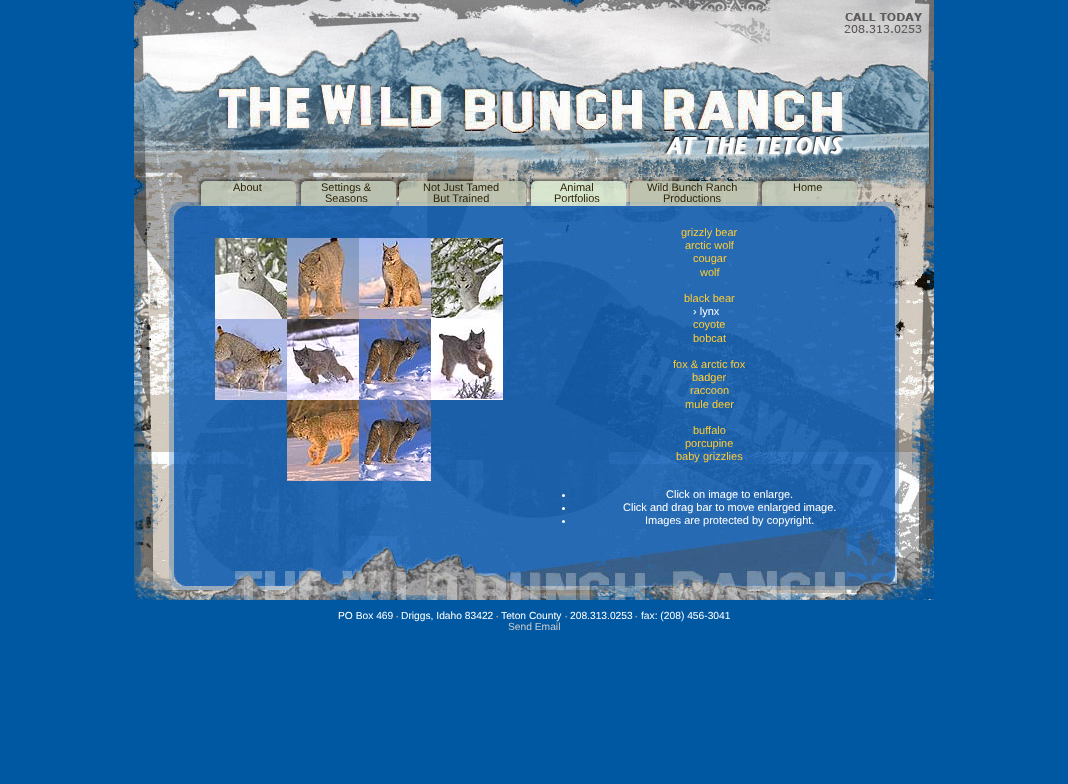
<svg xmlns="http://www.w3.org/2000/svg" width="1068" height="784">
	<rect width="100%" height="100%" fill="#0058A2" />
	<image x="134" y="0" width="800" height="600" href="assets/img1.png" />
	<image x="197" y="177" width="100" height="29" href="assets/img2.png" />
	<text x="233" y="191" font-family="Liberation Sans" font-size="11" fill="#2D2406">About</text>
	<image x="297" y="177" width="99" height="29" href="assets/img3.png" />
	<g font-family="Liberation Sans" font-size="11" fill="#2D2406">
		<text x="321" y="191">Settings &amp;</text>
		<text x="325" y="202">Seasons</text>
	</g>
	<image x="396" y="177" width="131" height="29" href="assets/img4.png" />
	<g font-family="Liberation Sans" font-size="11" fill="#2D2406">
		<text x="423" y="191">Not Just Tamed</text>
		<text x="433" y="202">But Trained</text>
	</g>
	<image x="527" y="177" width="100" height="29" href="assets/img5.png" />
	<g font-family="Liberation Sans" font-size="11" fill="#2D2406">
		<text x="560" y="191">Animal</text>
		<text x="554" y="202">Portfolios</text>
	</g>
	<image x="627" y="177" width="131" height="29" href="assets/img6.png" />
	<g font-family="Liberation Sans" font-size="11" fill="#2D2406">
		<text x="647" y="191">Wild Bunch Ranch</text>
		<text x="663" y="202">Productions</text>
	</g>
	<image x="758" y="177" width="100" height="29" href="assets/img7.png" />
	<text x="793" y="191" font-family="Liberation Sans" font-size="11" fill="#2D2406">Home</text>
	<image x="215" y="238" width="72" height="81" href="assets/img8.png" />
	<image x="287" y="238" width="72" height="81" href="assets/img9.png" />
	<image x="359" y="238" width="72" height="81" href="assets/img10.png" />
	<image x="431" y="238" width="72" height="81" href="assets/img11.png" />
	<image x="215" y="319" width="72" height="81" href="assets/img12.png" />
	<image x="287" y="319" width="72" height="81" href="assets/img13.png" />
	<image x="359" y="319" width="72" height="81" href="assets/img14.png" />
	<image x="431" y="319" width="72" height="81" href="assets/img15.png" />
	<image x="287" y="400" width="72" height="81" href="assets/img16.png" />
	<image x="359" y="400" width="72" height="81" href="assets/img14.png" />
	<g font-family="Liberation Sans" font-size="11" fill="#FFCC33">
		<text x="681" y="236">grizzly bear</text>
		<text x="685" y="249">arctic wolf</text>
		<text x="693" y="262">cougar</text>
		<text x="700" y="276">wolf</text>
		<text x="684" y="302">black bear</text>
	</g>
	<text x="693" y="315" font-family="Liberation Sans" font-size="11" fill="#FFFFFF">› lynx</text>
	<g font-family="Liberation Sans" font-size="11" fill="#FFCC33">
		<text x="693" y="328">coyote</text>
		<text x="693" y="342">bobcat</text>
		<text x="673" y="368">fox &amp; arctic fox</text>
		<text x="692" y="381">badger</text>
		<text x="690" y="394">raccoon</text>
		<text x="685" y="408">mule deer</text>
		<text x="693" y="434">buffalo</text>
		<text x="685" y="447">porcupine</text>
		<text x="676" y="460">baby grizzlies</text>
	</g>
	<circle cx="563.5" cy="495.5" r="1.5" fill="#FFFFFF" />
	<text x="666" y="498" font-family="Liberation Sans" font-size="11" fill="#FFFFFF">Click on image to enlarge.</text>
	<circle cx="563.5" cy="508.5" r="1.5" fill="#FFFFFF" />
	<text x="623" y="511" font-family="Liberation Sans" font-size="11" fill="#FFFFFF">Click and drag bar to move enlarged image.</text>
	<circle cx="563.5" cy="521.5" r="1.5" fill="#FFFFFF" />
	<text x="645" y="524" font-family="Liberation Sans" font-size="11" fill="#FFFFFF">Images are protected by copyright.</text>
	<text x="338" y="619" font-family="Liberation Sans" font-size="10.25" fill="#FFFFFF">PO Box 469</text>
	<text x="396" y="619" font-family="Liberation Sans" font-size="7" fill="#999999">•</text>
	<text x="401" y="619" font-family="Liberation Sans" font-size="10.25" fill="#FFFFFF">Driggs, Idaho 83422</text>
	<text x="496" y="619" font-family="Liberation Sans" font-size="7" fill="#999999">•</text>
	<text x="501" y="619" font-family="Liberation Sans" font-size="10.25" fill="#FFFFFF">Teton County</text>
	<text x="565" y="619" font-family="Liberation Sans" font-size="7" fill="#999999">•</text>
	<text x="570" y="619" font-family="Liberation Sans" font-size="10.25" fill="#FFFFFF">208.313.0253</text>
	<text x="635" y="619" font-family="Liberation Sans" font-size="7" fill="#999999">•</text>
	<text x="641" y="619" font-family="Liberation Sans" font-size="10.25" fill="#FFFFFF">fax: (208) 456-3041</text>
	<text x="508" y="630" font-family="Liberation Sans" font-size="10.25" fill="#CCCCCC">Send Email</text>
</svg>
